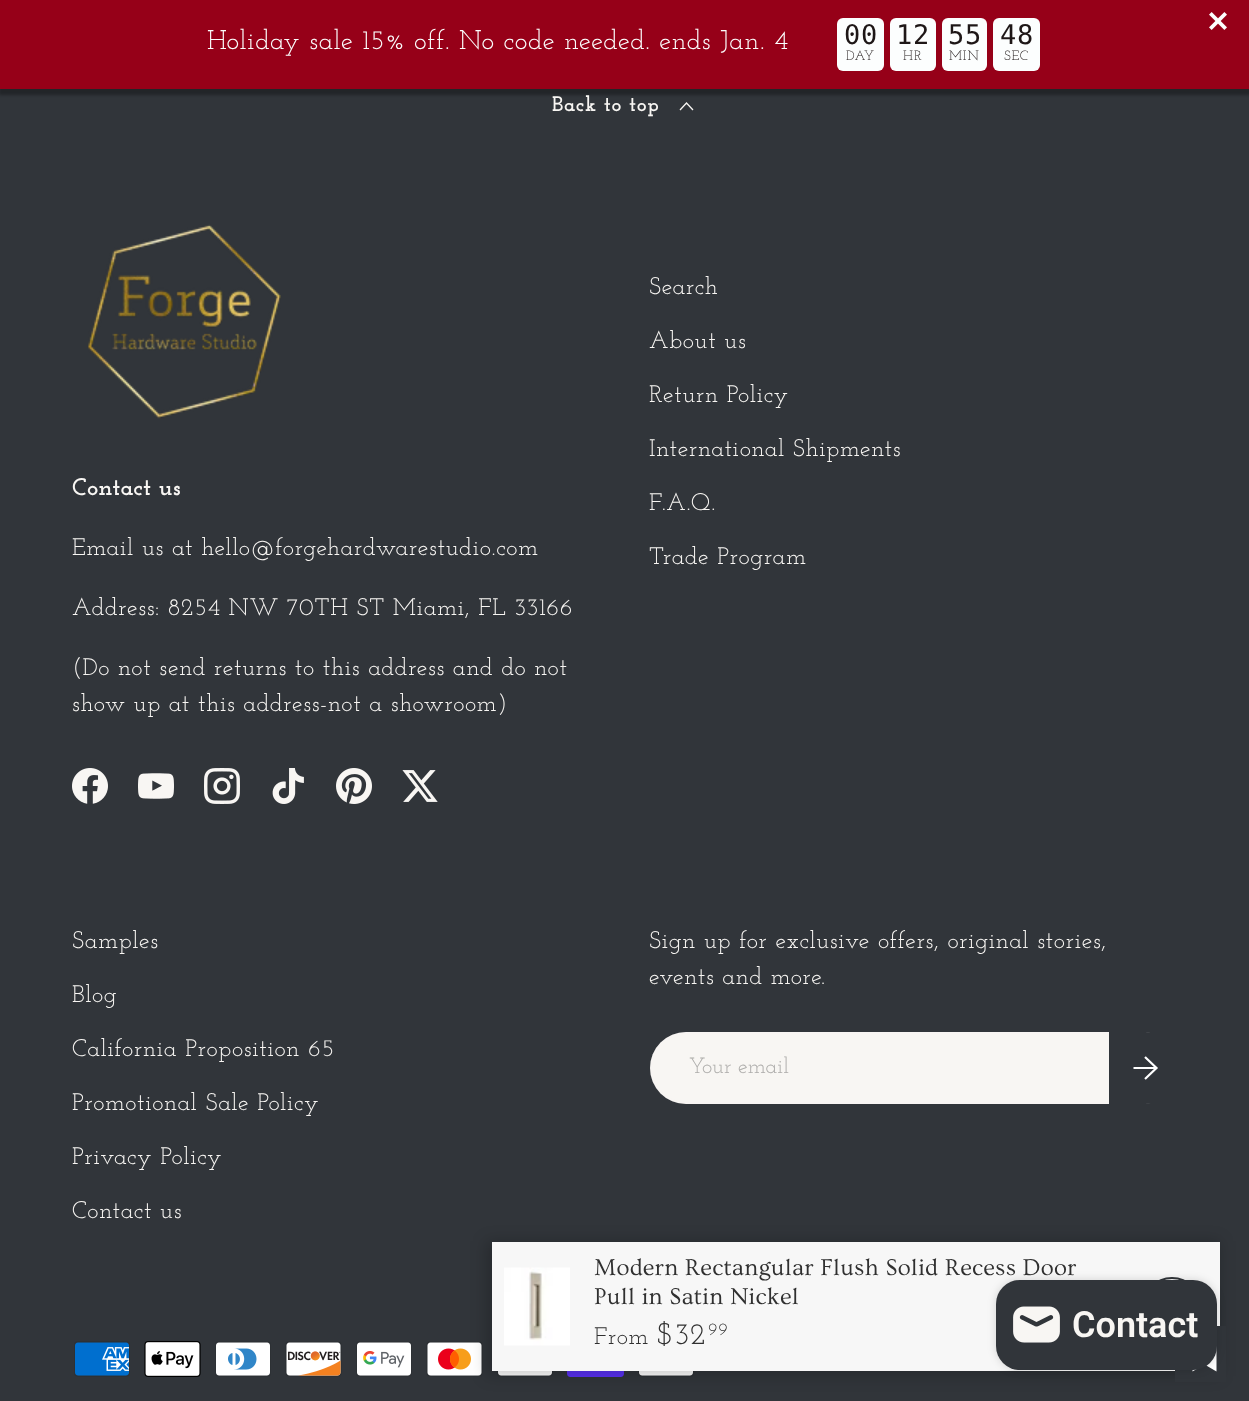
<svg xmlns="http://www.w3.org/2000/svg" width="1249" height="1401">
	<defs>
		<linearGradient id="g1" gradientUnits="userSpaceOnUse" x1="962" y1="1041" x2="1183" y2="1095"><stop offset="0.6" stop-color="#575B60" /><stop offset="0.6" stop-color="#31353A" /><stop offset="1" stop-color="#31353A" /></linearGradient>
		<clipPath id="clip1"><rect x="1142" y="1277" width="60" height="60" rx="30" /></clipPath>
		<linearGradient id="g2" gradientUnits="userSpaceOnUse" x1="1027" y1="1285" x2="1202" y2="1328"><stop offset="0.6" stop-color="#31353A" stop-opacity="0.07" /><stop offset="0.6" stop-color="#FFFFFF" /><stop offset="1" stop-color="#FFFFFF" /></linearGradient>
	</defs>
	<rect width="100%" height="100%" fill="#31353A" />
	<rect x="-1" y="3" width="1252" height="92" fill="#000000" fill-opacity="0.3" filter="blur(1.5px)" />
	<rect x="0" y="0" width="1249" height="89" fill="#960018" />
	<image x="1209" y="12" width="18" height="18" href="assets/img1.png" />
	<text x="207" y="49" font-family="Josefin Slab" font-size="27" letter-spacing="0.7" fill="#FCFEFE">Holiday sale 15% off. No code needed. ends Jan. 4</text>
	<rect x="837" y="18" width="47" height="53" rx="6" fill="#FCFEFE" />
	<text x="844" y="44" font-family="DejaVu Sans Mono" font-size="27" letter-spacing="0.7" fill="#1E1717">00</text>
	<text x="846" y="60" font-family="Josefin Slab" font-size="13.5" letter-spacing="0.7" fill="#1E1717">DAY</text>
	<rect x="890" y="18" width="46" height="53" rx="6" fill="#FCFEFE" />
	<text x="896" y="44" font-family="DejaVu Sans Mono" font-size="27" letter-spacing="0.7" fill="#1E1717">12</text>
	<text x="903" y="60" font-family="Josefin Slab" font-size="13.5" letter-spacing="0.7" fill="#1E1717">HR</text>
	<rect x="942" y="18" width="45" height="53" rx="6" fill="#FCFEFE" />
	<text x="948" y="44" font-family="DejaVu Sans Mono" font-size="27" letter-spacing="0.7" fill="#1E1717">55</text>
	<text x="949" y="60" font-family="Josefin Slab" font-size="13.5" letter-spacing="0.7" fill="#1E1717">MIN</text>
	<rect x="993" y="18" width="47" height="53" rx="6" fill="#FCFEFE" />
	<text x="1000" y="44" font-family="DejaVu Sans Mono" font-size="27" letter-spacing="0.7" fill="#1E1717">48</text>
	<text x="1004" y="60" font-family="Josefin Slab" font-size="13.5" letter-spacing="0.7" fill="#1E1717">SEC</text>
	<text x="552" y="111" font-family="Josefin Slab" font-size="21" font-weight="700" letter-spacing="0.7" fill="#F8F6F3">Back to top</text>
	<path d="M680 110L686.5 103L693 110" fill="none" stroke="#F8F6F3" stroke-width="1.3" />
	<g font-family="Josefin Slab" font-size="24" letter-spacing="0.7" fill="#F8F6F3">
		<text x="649" y="294">Search</text>
		<text x="649" y="348">About us</text>
		<text x="649" y="402">Return Policy</text>
		<text x="649" y="456">International Shipments</text>
		<text x="649" y="510">F.A.Q.</text>
		<text x="649" y="564">Trade Program</text>
	</g>
	<image x="88" y="224" width="193" height="195" href="assets/img2.png" />
	<text x="72" y="495" font-family="Josefin Slab" font-size="24" font-weight="700" letter-spacing="0.25" fill="#F8F6F3">Contact us</text>
	<g font-family="Josefin Slab" font-size="24" letter-spacing="0.7" fill="#F8F6F3">
		<text x="72" y="555">Email us at hello@forgehardwarestudio.com</text>
		<text x="72" y="615">Address: 8254 NW 70TH ST Miami, FL 33166</text>
		<text x="72" y="675">(Do not send returns to this address and do not</text>
		<text x="72" y="711">show up at this address-not a showroom)</text>
	</g>
	<image x="72" y="768" width="36" height="36" href="assets/img3.png" />
	<image x="138" y="773" width="36" height="26" href="assets/img4.png" />
	<image x="204" y="768" width="36" height="36" href="assets/img5.png" />
	<image x="272" y="768" width="32" height="36" href="assets/img6.png" />
	<image x="336" y="768" width="36" height="36" href="assets/img7.png" />
	<image x="402" y="770" width="36" height="32" href="assets/img8.png" />
	<g font-family="Josefin Slab" font-size="24" letter-spacing="0.7" fill="#F8F6F3">
		<text x="72" y="948">Samples</text>
		<text x="72" y="1002">Blog</text>
		<text x="72" y="1056">California Proposition 65</text>
		<text x="72" y="1110">Promotional Sale Policy</text>
		<text x="72" y="1164">Privacy Policy</text>
		<text x="72" y="1218">Contact us</text>
		<text x="649" y="948">Sign up for exclusive offers, original stories,</text>
		<text x="649" y="984">events and more.</text>
	</g>
	<rect x="650" y="1032" width="528" height="72" rx="36" fill="#F8F6F3" />
	<rect x="651" y="1033" width="526" height="70" rx="35" fill="none" stroke="#F8F6F3" stroke-opacity="0.2" stroke-width="2" />
	<text x="689" y="1073" font-family="Josefin Slab" font-size="22" fill="#ADACAA">Your email</text>
	<path d="M1109 1032H1145C1165 1032 1181 1048 1181 1068C1181 1088 1165 1104 1145 1104H1109Z" fill="url(#g1)" />
	<path d="M1133.5 1068H1155.5M1145 1057L1156.5 1068L1145 1079" fill="none" stroke="#FFFFFF" stroke-width="2.2" />
	<image x="74" y="1341" width="56" height="36" href="assets/img9.png" />
	<image x="144" y="1341" width="57" height="36" href="assets/img10.png" />
	<image x="215" y="1341" width="56" height="36" href="assets/img11.png" />
	<image x="285" y="1341" width="57" height="36" href="assets/img12.png" />
	<image x="356" y="1341" width="56" height="36" href="assets/img13.png" />
	<image x="426" y="1341" width="57" height="36" href="assets/img14.png" />
	<image x="497" y="1371" width="56" height="6" href="assets/img15.png" />
	<image x="567" y="1371" width="57" height="6" href="assets/img16.png" />
	<image x="638" y="1371" width="56" height="6" href="assets/img15.png" />
	<rect x="486" y="1241" width="734" height="135" fill="#000000" fill-opacity="0.2" filter="blur(7.5px)" />
	<rect x="492" y="1242" width="728" height="129" fill="#F7F7F7" />
	<image x="504" y="1267" width="66" height="79" href="assets/img17.png" />
	<g font-family="Ovo" font-size="24" letter-spacing="0.25" fill="#303030">
		<text x="594" y="1275">Modern Rectangular Flush Solid Recess Door</text>
		<text x="594" y="1304">Pull in Satin Nickel</text>
	</g>
	<text x="594" y="1344" font-family="Josefin Slab" font-size="24" letter-spacing="0.7" fill="#303030">From</text>
	<text x="657" y="1344" font-family="Josefin Slab" font-size="30" letter-spacing="0.7" fill="#303030">$32</text>
	<text x="708" y="1335" font-family="Josefin Slab" font-size="18" letter-spacing="0.7" fill="#303030">99</text>
	<g clip-path="url(#clip1)">
		<rect x="1159" y="1278" width="26" height="2" fill="url(#g2)" />
	</g>
	<circle cx="1172" cy="1307" r="29" fill="none" stroke="#31353A" stroke-width="2" />
	<rect x="1175" y="1326" width="51" height="56" fill="#31353A" />
	<path d="M1192.5 1371.5V1342.5C1192.5 1341 1194 1339.5 1195.5 1339.5H1213.5C1215 1339.5 1216.5 1341 1216.5 1342.5V1371.5L1204.5 1364.5Z" fill="#FFFFFF" />
	<rect x="996" y="1280" width="221" height="90" rx="24" fill="#000000" fill-opacity="0.15" filter="blur(4px)" />
	<rect x="996" y="1280" width="221" height="90" rx="24" fill="#31353A" />
	<image x="1013" y="1306" width="47" height="37" href="assets/img18.png" />
	<text x="1072" y="1337" font-family="Roboto" font-size="36" font-weight="600" fill="#F8F6F3">Contact</text>
</svg>
